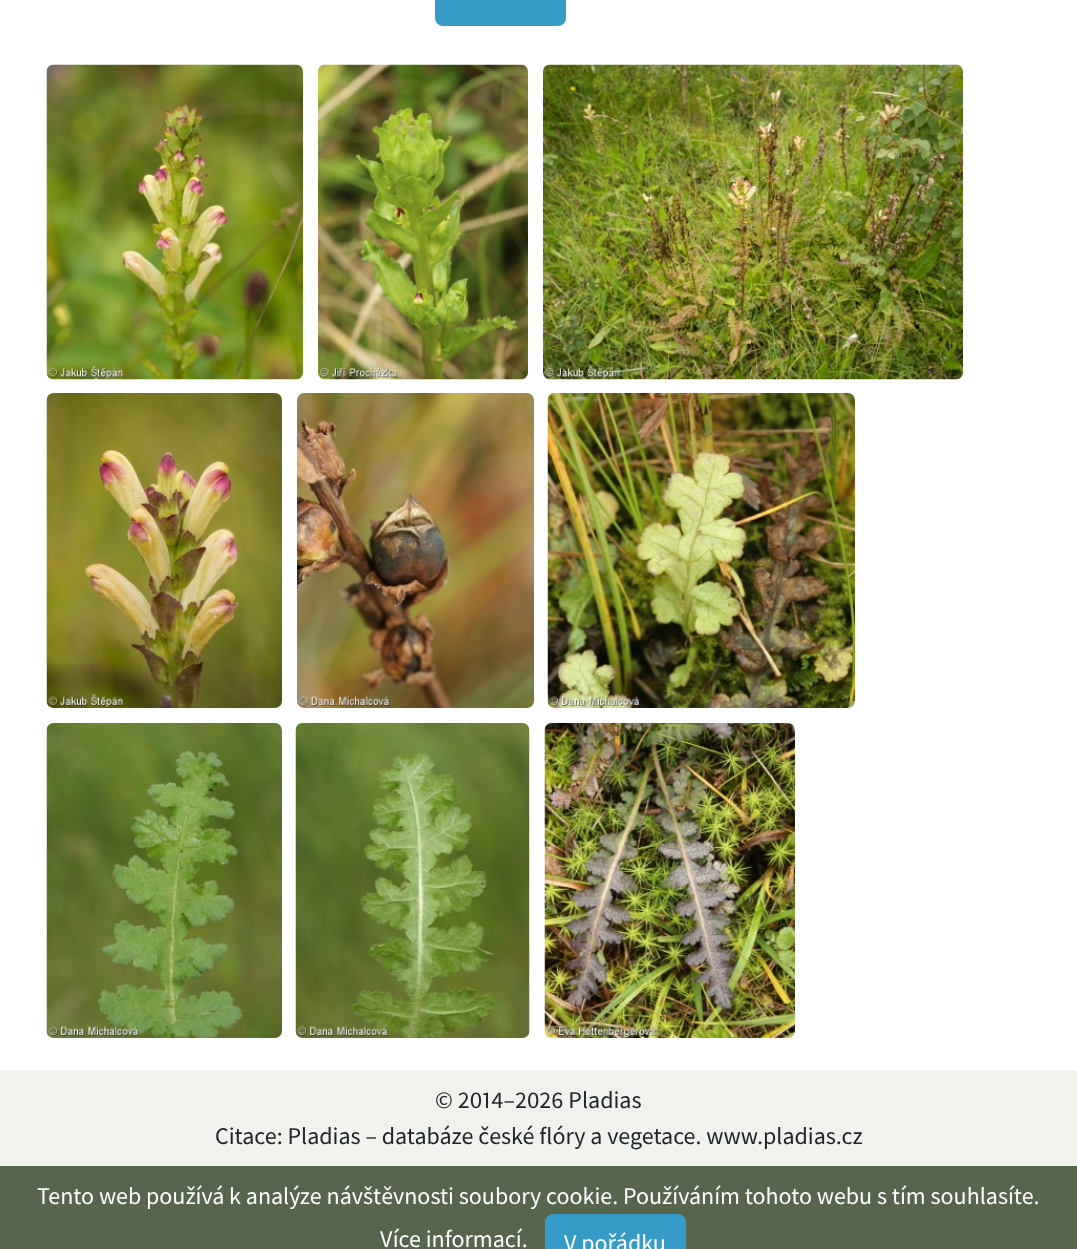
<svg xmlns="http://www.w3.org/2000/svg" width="1077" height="1249">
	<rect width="100%" height="100%" fill="#FFFFFF" />
	<rect x="435" y="-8" width="131" height="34" rx="8" fill="#379BC8" />
	<image x="46" y="64" width="257" height="316" href="assets/img1.png" />
	<image x="318" y="64" width="210" height="316" href="assets/img2.png" />
	<image x="543" y="64" width="420" height="316" href="assets/img3.png" />
	<image x="46" y="393" width="236" height="315" href="assets/img4.png" />
	<image x="297" y="393" width="237" height="315" href="assets/img5.png" />
	<image x="547" y="393" width="308" height="315" href="assets/img6.png" />
	<image x="46" y="723" width="236" height="315" href="assets/img7.png" />
	<image x="295" y="723" width="235" height="315" href="assets/img8.png" />
	<image x="544" y="723" width="251" height="315" href="assets/img9.png" />
	<rect x="0" y="1070" width="1077" height="96" fill="#F0F2EE" />
	<text x="435" y="1108" font-family="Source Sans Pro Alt" font-size="24" fill="#212529">© 2014–2026 Pladias</text>
	<text x="215" y="1144" font-family="Source Sans Pro" font-size="24" fill="#212529">Citace: Pladias – databáze české flóry a vegetace. www.pladias.cz</text>
	<rect x="0" y="1166" width="1077" height="83" fill="#57654D" />
	<g font-family="Source Sans Pro" font-size="24" fill="#FFFFFF">
		<text x="37" y="1204">Tento web používá k analýze návštěvnosti soubory cookie. Používáním tohoto webu s tím souhlasíte.</text>
		<text x="380" y="1247">Více informací.</text>
	</g>
	<rect x="546" y="1215" width="139" height="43" rx="7" fill="#379BC8" stroke="#379BC8" stroke-width="2" />
	<text x="564" y="1251" font-family="Source Sans Pro" font-size="24" fill="#FFFFFF">V pořádku</text>
</svg>
